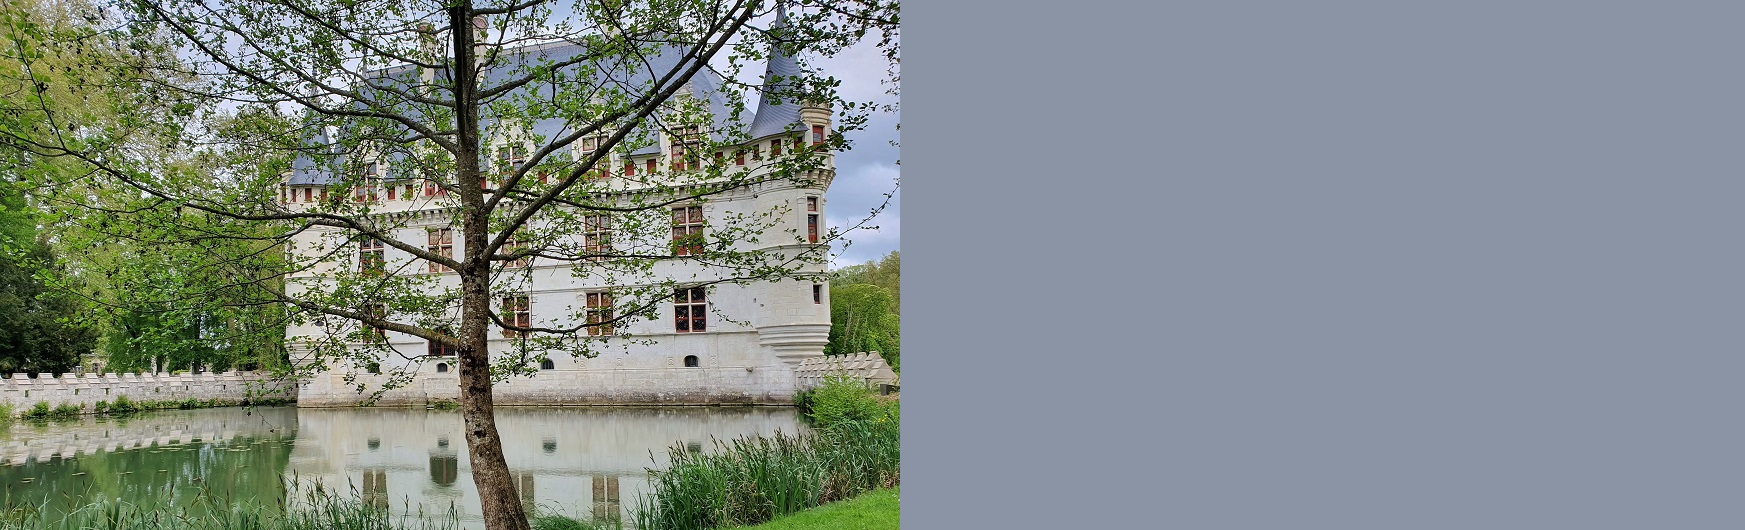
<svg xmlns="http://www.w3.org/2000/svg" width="1745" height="530">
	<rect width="100%" height="100%" fill="#8B94A5" />
	<image x="0" y="0" width="900" height="530" href="assets/img1.png" />
</svg>
